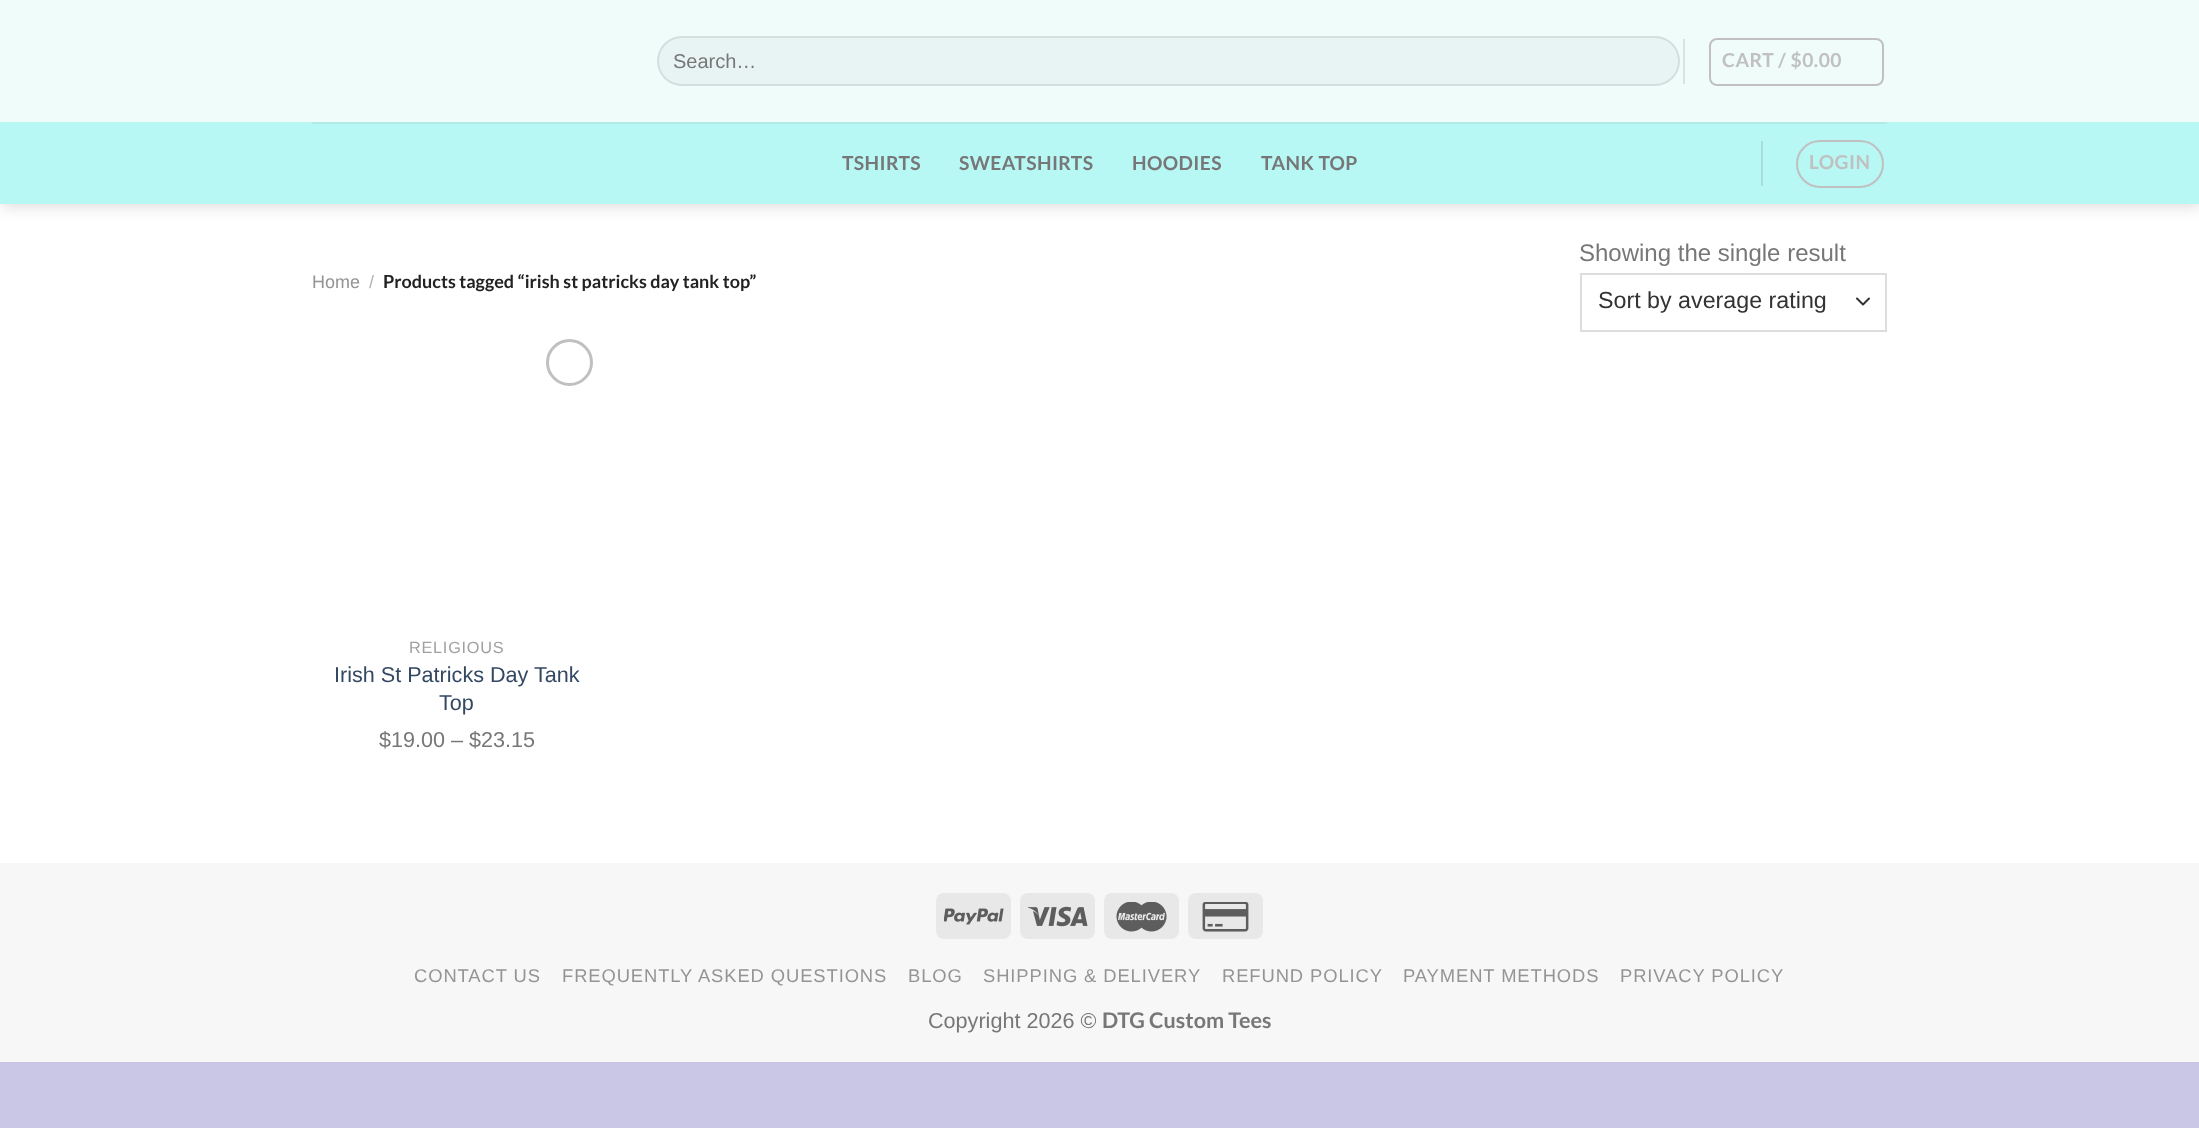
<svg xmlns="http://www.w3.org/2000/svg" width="2199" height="1128">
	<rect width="100%" height="100%" fill="#CAC6E6" />
	<rect x="0" y="204" width="2199" height="659" fill="#FFFFFF" />
	<rect x="2" y="2" width="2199" height="204" fill="#000000" fill-opacity="0.15" filter="blur(7.5px)" />
	<rect x="0" y="0" width="2199" height="122" fill="#EFFCFA" />
	<rect x="657" y="36" width="1023" height="50" rx="25" fill="#E8F4F3" />
	<rect x="658" y="37" width="1021" height="48" rx="24" fill="none" stroke="#000000" stroke-opacity="0.09" stroke-width="2" />
	<text x="673" y="68" font-family="Liberation Sans" font-size="20" fill="#777777">Search…</text>
	<rect x="1683" y="39" width="2" height="45" fill="#D7E3E1" />
	<rect x="1710" y="39" width="173" height="46" rx="7" fill="none" stroke="#C0C0C0" stroke-width="2" />
	<text x="1722" y="67" font-family="Lato" font-size="19.25" font-weight="700" letter-spacing="0.5" fill="#C0C0C0">CART / $0.00</text>
	<rect x="0" y="122" width="2199" height="82" fill="#B7F7F4" />
	<rect x="312" y="122" width="1575" height="2" fill="#B1EAE7" />
	<g font-family="Lato" font-size="19.25" font-weight="700" letter-spacing="0.4" fill="#777777">
		<text x="842" y="170">TSHIRTS</text>
		<text x="959" y="170">SWEATSHIRTS</text>
		<text x="1132" y="170">HOODIES</text>
		<text x="1261" y="170">TANK TOP</text>
	</g>
	<rect x="1761" y="141" width="2" height="45" fill="#A5DEDC" />
	<rect x="1797" y="141" width="86" height="46" rx="23" fill="none" stroke="#C0C0C0" stroke-width="2" />
	<text x="1809" y="169" font-family="Lato" font-size="19.25" font-weight="700" letter-spacing="0.5" fill="#C0C0C0">LOGIN</text>
	<text x="312" y="288" font-family="Liberation Sans" font-size="18" fill="#949494">Home</text>
	<text x="369" y="288" font-family="Liberation Sans" font-size="18" fill="#B2B2B2">/</text>
	<text x="383" y="288" font-family="Lato" font-size="18" font-weight="700" fill="#222222">Products tagged “irish st patricks day tank top”</text>
	<text x="1579" y="261" font-family="Liberation Sans" font-size="24" fill="#777777">Showing the single result</text>
	<path d="M1857 298.5L1863 304.5L1869 298.5" fill="none" stroke="#333333" stroke-width="2" stroke-linecap="round" stroke-linejoin="round" />
	<rect x="1581" y="274" width="305" height="57" fill="none" stroke="#DDDDDD" stroke-width="2" />
	<text x="1598" y="308" font-family="Liberation Sans" font-size="23.25" fill="#333333">Sort by average rating</text>
	<circle cx="569.5" cy="362.5" r="22" fill="none" stroke="#C0C0C0" stroke-width="3" />
	<text x="409" y="653" font-family="Liberation Sans" font-size="16.25" letter-spacing="0.75" fill="#A0A0A0">RELIGIOUS</text>
	<g font-family="Liberation Sans" font-size="21.6" fill="#334862">
		<text x="334" y="682">Irish St Patricks Day Tank</text>
		<text x="439" y="710">Top</text>
	</g>
	<text x="379" y="747" font-family="Liberation Sans" font-size="21.6" fill="#777777">$19.00 – $23.15</text>
	<rect x="0" y="863" width="2199" height="199" fill="#F7F7F7" />
	<rect x="936" y="893" width="75" height="46" rx="8" fill="#E8E8E8" />
	<image x="944" y="908" width="60" height="17" href="assets/img1.png" />
	<rect x="1020" y="893" width="75" height="46" rx="8" fill="#E8E8E8" />
	<image x="1028" y="906" width="60" height="21" href="assets/img2.png" />
	<rect x="1104" y="893" width="75" height="46" rx="8" fill="#E8E8E8" />
	<image x="1116" y="902" width="51" height="30" href="assets/img3.png" />
	<rect x="1188" y="893" width="75" height="46" rx="8" fill="#E8E8E8" />
	<image x="1202" y="902" width="47" height="30" href="assets/img4.png" />
	<g font-family="Liberation Sans" font-size="18.4" letter-spacing="0.9" fill="#949494">
		<text x="414" y="982">CONTACT US</text>
		<text x="562" y="982">FREQUENTLY ASKED QUESTIONS</text>
		<text x="908" y="982">BLOG</text>
		<text x="983" y="982">SHIPPING &amp; DELIVERY</text>
		<text x="1222" y="982">REFUND POLICY</text>
		<text x="1403" y="982">PAYMENT METHODS</text>
		<text x="1620" y="982">PRIVACY POLICY</text>
	</g>
	<text x="928" y="1028" font-family="Liberation Sans" font-size="21.6" fill="#777777">Copyright 2026 ©</text>
	<text x="1102" y="1028" font-family="Lato" font-size="21.6" font-weight="700" fill="#777777">DTG Custom Tees</text>
</svg>
